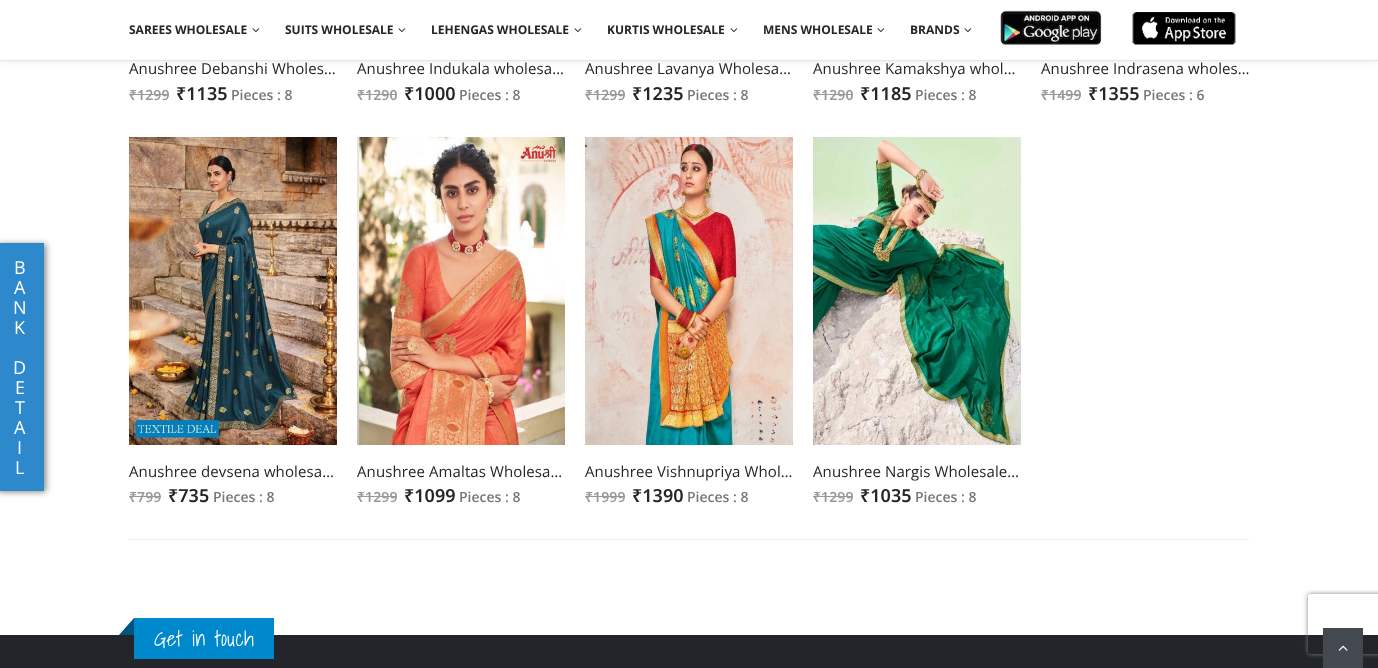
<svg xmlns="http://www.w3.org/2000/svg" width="1378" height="668">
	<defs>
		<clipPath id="clip1"><path d="M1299 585H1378V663H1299ZM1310 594H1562C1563 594 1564 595 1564 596V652C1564 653 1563 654 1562 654H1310C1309 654 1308 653 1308 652V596C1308 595 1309 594 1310 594Z" clip-rule="evenodd" /></clipPath>
	</defs>
	<rect width="100%" height="100%" fill="#FFFFFF" />
	<rect x="0" y="1" width="1378" height="61" fill="#000000" fill-opacity="0.08" filter="blur(2.5px)" />
	<rect x="0" y="0" width="1378" height="60" fill="#FFFFFF" />
	<rect x="0" y="60" width="1378" height="1" fill="#E7E7E7" />
	<text x="129" y="34" font-family="Open Sans" font-size="12" font-weight="700" fill="#222529">SAREES WHOLESALE</text>
	<image x="252" y="28" width="8" height="5" href="assets/img1.png" />
	<text x="285" y="34" font-family="Open Sans" font-size="12" font-weight="700" fill="#222529">SUITS WHOLESALE</text>
	<image x="398" y="28" width="8" height="5" href="assets/img1.png" />
	<text x="431" y="34" font-family="Open Sans" font-size="12" font-weight="700" fill="#222529">LEHENGAS WHOLESALE</text>
	<image x="574" y="28" width="8" height="5" href="assets/img1.png" />
	<text x="607" y="34" font-family="Open Sans" font-size="12" font-weight="700" fill="#222529">KURTIS WHOLESALE</text>
	<image x="730" y="28" width="8" height="5" href="assets/img1.png" />
	<text x="763" y="34" font-family="Open Sans" font-size="12" font-weight="700" fill="#222529">MENS WHOLESALE</text>
	<image x="877" y="28" width="8" height="5" href="assets/img1.png" />
	<text x="910" y="34" font-family="Open Sans" font-size="12" font-weight="700" fill="#222529">BRANDS</text>
	<image x="964" y="28" width="8" height="5" href="assets/img1.png" />
	<image x="1000" y="10" width="102" height="35" href="assets/img2.png" />
	<image x="1132" y="12" width="104" height="33" href="assets/img3.png" />
	<rect x="-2" y="244" width="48" height="248" fill="#0A0A00" fill-opacity="0.5" filter="blur(3px)" />
	<rect x="-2" y="245" width="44" height="244" fill="none" stroke="#2D88CC" stroke-width="4" />
	<rect x="0" y="247" width="40" height="240" fill="#2D88CC" />
	<g font-family="Open Sans" font-size="18" fill="#FFFFFF">
		<text x="14" y="274">B</text>
		<text x="14" y="294">A</text>
		<text x="13" y="314">N</text>
		<text x="14" y="334">K</text>
		<text x="13" y="374">D</text>
		<text x="15" y="394">E</text>
		<text x="15" y="414">T</text>
		<text x="14" y="434">A</text>
		<text x="17" y="454">I</text>
		<text x="15" y="474">L</text>
	</g>
	<text x="129" y="74" font-family="Open Sans" font-size="15" letter-spacing="0.1" fill="#222529">Anushree Debanshi Wholes…</text>
	<text x="129" y="100" font-family="Noto Sans" font-size="14" font-weight="600" letter-spacing="0.1" fill="#999999">₹1299</text>
	<rect x="129" y="94" width="40" height="1" fill="#999999" />
	<text x="176" y="100" font-family="Noto Sans" font-size="18" font-weight="600" fill="#222529">₹1135</text>
	<text x="231" y="100" font-family="Open Sans" font-size="14" font-weight="600" fill="#777777">Pieces : 8</text>
	<text x="357" y="74" font-family="Open Sans" font-size="15" letter-spacing="0.1" fill="#222529">Anushree Indukala wholesa…</text>
	<text x="357" y="100" font-family="Noto Sans" font-size="14" font-weight="600" letter-spacing="0.1" fill="#999999">₹1290</text>
	<rect x="357" y="94" width="40" height="1" fill="#999999" />
	<text x="404" y="100" font-family="Noto Sans" font-size="18" font-weight="600" fill="#222529">₹1000</text>
	<text x="459" y="100" font-family="Open Sans" font-size="14" font-weight="600" fill="#777777">Pieces : 8</text>
	<text x="585" y="74" font-family="Open Sans" font-size="15" letter-spacing="0.1" fill="#222529">Anushree Lavanya Wholesa…</text>
	<text x="585" y="100" font-family="Noto Sans" font-size="14" font-weight="600" letter-spacing="0.1" fill="#999999">₹1299</text>
	<rect x="585" y="94" width="40" height="1" fill="#999999" />
	<text x="632" y="100" font-family="Noto Sans" font-size="18" font-weight="600" fill="#222529">₹1235</text>
	<text x="687" y="100" font-family="Open Sans" font-size="14" font-weight="600" fill="#777777">Pieces : 8</text>
	<text x="813" y="74" font-family="Open Sans" font-size="15" letter-spacing="0.1" fill="#222529">Anushree Kamakshya whol…</text>
	<text x="813" y="100" font-family="Noto Sans" font-size="14" font-weight="600" letter-spacing="0.1" fill="#999999">₹1290</text>
	<rect x="813" y="94" width="40" height="1" fill="#999999" />
	<text x="860" y="100" font-family="Noto Sans" font-size="18" font-weight="600" fill="#222529">₹1185</text>
	<text x="915" y="100" font-family="Open Sans" font-size="14" font-weight="600" fill="#777777">Pieces : 8</text>
	<text x="1041" y="74" font-family="Open Sans" font-size="15" letter-spacing="0.1" fill="#222529">Anushree Indrasena wholes…</text>
	<text x="1041" y="100" font-family="Noto Sans" font-size="14" font-weight="600" letter-spacing="0.1" fill="#999999">₹1499</text>
	<rect x="1041" y="94" width="40" height="1" fill="#999999" />
	<text x="1088" y="100" font-family="Noto Sans" font-size="18" font-weight="600" fill="#222529">₹1355</text>
	<text x="1143" y="100" font-family="Open Sans" font-size="14" font-weight="600" fill="#777777">Pieces : 6</text>
	<image x="129" y="137" width="208" height="308" href="assets/img4.png" />
	<text x="129" y="477" font-family="Open Sans" font-size="15" letter-spacing="0.1" fill="#222529">Anushree devsena wholesa…</text>
	<text x="129" y="502" font-family="Noto Sans" font-size="14" font-weight="600" letter-spacing="0.1" fill="#999999">₹799</text>
	<rect x="129" y="496" width="32" height="1" fill="#999999" />
	<text x="168" y="502" font-family="Noto Sans" font-size="18" font-weight="600" fill="#222529">₹735</text>
	<text x="213" y="502" font-family="Open Sans" font-size="14" font-weight="600" fill="#777777">Pieces : 8</text>
	<image x="357" y="137" width="208" height="308" href="assets/img5.png" />
	<text x="357" y="477" font-family="Open Sans" font-size="15" letter-spacing="0.1" fill="#222529">Anushree Amaltas Wholesa…</text>
	<text x="357" y="502" font-family="Noto Sans" font-size="14" font-weight="600" letter-spacing="0.1" fill="#999999">₹1299</text>
	<rect x="357" y="496" width="40" height="1" fill="#999999" />
	<text x="404" y="502" font-family="Noto Sans" font-size="18" font-weight="600" fill="#222529">₹1099</text>
	<text x="459" y="502" font-family="Open Sans" font-size="14" font-weight="600" fill="#777777">Pieces : 8</text>
	<image x="585" y="137" width="208" height="308" href="assets/img6.png" />
	<text x="585" y="477" font-family="Open Sans" font-size="15" letter-spacing="0.1" fill="#222529">Anushree Vishnupriya Whol…</text>
	<text x="585" y="502" font-family="Noto Sans" font-size="14" font-weight="600" letter-spacing="0.1" fill="#999999">₹1999</text>
	<rect x="585" y="496" width="40" height="1" fill="#999999" />
	<text x="632" y="502" font-family="Noto Sans" font-size="18" font-weight="600" fill="#222529">₹1390</text>
	<text x="687" y="502" font-family="Open Sans" font-size="14" font-weight="600" fill="#777777">Pieces : 8</text>
	<image x="813" y="137" width="208" height="308" href="assets/img7.png" />
	<text x="813" y="477" font-family="Open Sans" font-size="15" letter-spacing="0.1" fill="#222529">Anushree Nargis Wholesale…</text>
	<text x="813" y="502" font-family="Noto Sans" font-size="14" font-weight="600" letter-spacing="0.1" fill="#999999">₹1299</text>
	<rect x="813" y="496" width="40" height="1" fill="#999999" />
	<text x="860" y="502" font-family="Noto Sans" font-size="18" font-weight="600" fill="#222529">₹1035</text>
	<text x="915" y="502" font-family="Open Sans" font-size="14" font-weight="600" fill="#777777">Pieces : 8</text>
	<rect x="129" y="539" width="1120" height="1" fill="#EFEFEF" />
	<rect x="0" y="635" width="1378" height="33" fill="#222529" />
	<rect x="134" y="618" width="140" height="41" fill="#0088CC" />
	<path d="M134 618V635H119Z" fill="#005580" />
	<text x="154" y="646" font-family="Shadows Into Light" font-size="21" font-weight="300" letter-spacing="0.25" fill="#FFFFFF">Get in touch</text>
	<g clip-path="url(#clip1)">
		<rect x="1308" y="594" width="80" height="60" rx="2" fill="#808080" filter="blur(2.5px)" />
	</g>
	<rect x="1323" y="628" width="40" height="40" fill="#43494E" />
	<image x="1338" y="645" width="10" height="6" href="assets/img8.png" />
</svg>
